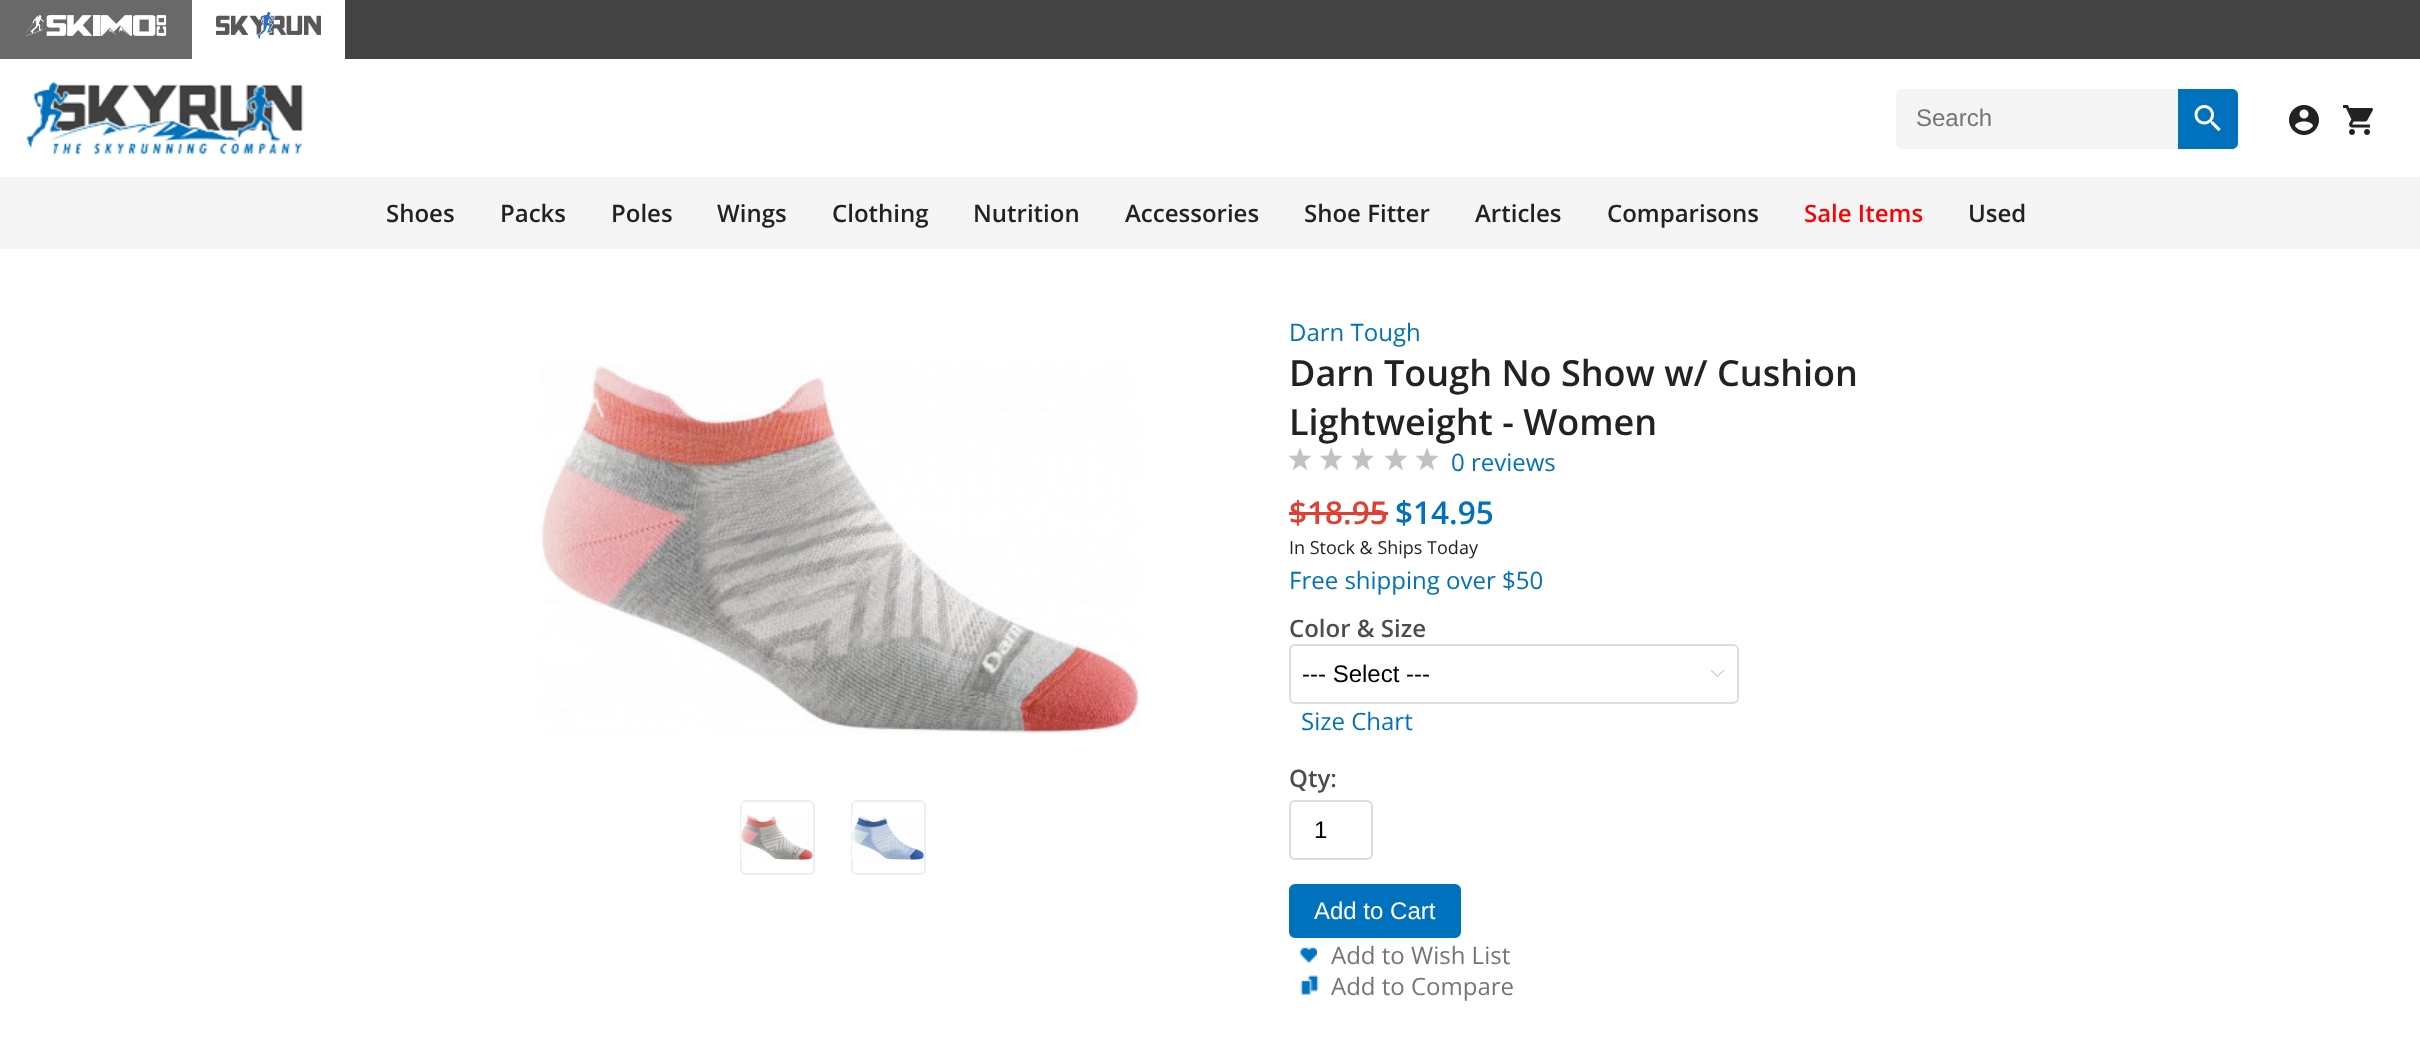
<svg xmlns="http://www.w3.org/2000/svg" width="2420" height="1040">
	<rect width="100%" height="100%" fill="#FFFFFF" />
	<rect x="345" y="0" width="2075" height="59" fill="#444444" />
	<rect x="0" y="0" width="192" height="59" fill="#696969" />
	<image x="25" y="15" width="142" height="21" href="assets/img1.png" />
	<image x="216" y="12" width="105" height="27" href="assets/img2.png" />
	<image x="26" y="82" width="278" height="73" href="assets/img3.png" />
	<rect x="1896" y="89" width="308" height="60" rx="6" fill="#F5F5F5" />
	<text x="1916" y="126" font-family="Liberation Sans" font-size="24" fill="#757575">Search</text>
	<path d="M2178 89H2232C2235.5 89 2238 91.5 2238 95V143C2238 146.5 2235.5 149 2232 149H2178Z" fill="#0071BC" />
	<image x="2194" y="105" width="27" height="27" href="assets/img4.png" />
	<image x="2289" y="105" width="30" height="30" href="assets/img5.png" />
	<image x="2343" y="105" width="30" height="30" href="assets/img6.png" />
	<rect x="0" y="177" width="2420" height="72" fill="#F5F5F5" />
	<g font-family="Open Sans" font-size="24" font-weight="600" fill="#222222">
		<text x="386" y="222">Shoes</text>
		<text x="500" y="222">Packs</text>
		<text x="611" y="222">Poles</text>
		<text x="717" y="222">Wings</text>
		<text x="832" y="222">Clothing</text>
		<text x="973" y="222">Nutrition</text>
		<text x="1125" y="222">Accessories</text>
		<text x="1304" y="222">Shoe Fitter</text>
		<text x="1475" y="222">Articles</text>
		<text x="1607" y="222">Comparisons</text>
	</g>
	<text x="1804" y="222" font-family="Open Sans" font-size="24" font-weight="600" fill="#FF0000">Sale Items</text>
	<text x="1968" y="222" font-family="Open Sans" font-size="24" font-weight="600" fill="#222222">Used</text>
	<image x="540" y="364" width="600" height="370" href="assets/img7.png" />
	<rect x="741" y="801" width="73" height="73" rx="5" fill="none" stroke="#EEEEEE" stroke-width="2" />
	<image x="741" y="815" width="72" height="45" href="assets/img8.png" />
	<rect x="852" y="801" width="73" height="73" rx="5" fill="none" stroke="#EEEEEE" stroke-width="2" />
	<image x="852" y="815" width="72" height="45" href="assets/img9.png" />
	<text x="1289" y="341" font-family="Open Sans" font-size="24" fill="#0071BC">Darn Tough</text>
	<g font-family="Open Sans" font-size="36" font-weight="600" fill="#222222">
		<text x="1289" y="386">Darn Tough No Show w/ Cushion</text>
		<text x="1289" y="435">Lightweight - Women</text>
	</g>
	<image x="1288" y="447" width="151" height="24" href="assets/img10.png" />
	<text x="1451" y="471" font-family="Open Sans" font-size="24" fill="#0071BC">0 reviews</text>
	<text x="1289" y="524" font-family="Open Sans" font-size="31.5" font-weight="600" fill="#E43D32">$18.95</text>
	<rect x="1289" y="512" width="99" height="3" fill="#E43D32" />
	<text x="1395" y="524" font-family="Open Sans" font-size="31.5" font-weight="600" fill="#0071BC">$14.95</text>
	<text x="1289" y="554" font-family="Open Sans" font-size="18" fill="#222222">In Stock &amp; Ships Today</text>
	<text x="1289" y="589" font-family="Open Sans" font-size="24" fill="#0071BC">Free shipping over $50</text>
	<text x="1289" y="637" font-family="Open Sans" font-size="24" font-weight="600" fill="#4D4D4D">Color &amp; Size</text>
	<path d="M1711 670L1717.5 676.5L1724 670" fill="none" stroke="#CCCCCC" stroke-width="1.1" />
	<rect x="1290" y="645" width="448" height="58" rx="5" fill="none" stroke="#DDDDDD" stroke-width="2" />
	<text x="1302" y="682" font-family="Liberation Sans" font-size="24" fill="#000000">--- Select ---</text>
	<text x="1301" y="730" font-family="Open Sans" font-size="24" fill="#0071BC">Size Chart</text>
	<text x="1289" y="787" font-family="Open Sans" font-size="24" font-weight="600" fill="#4D4D4D">Qty:</text>
	<rect x="1290" y="801" width="82" height="58" rx="5" fill="none" stroke="#DDDDDD" stroke-width="2" />
	<text x="1314" y="838" font-family="Liberation Sans" font-size="24" fill="#000000">1</text>
	<rect x="1290" y="885" width="170" height="52" rx="5" fill="#0071BC" stroke="#0071BC" stroke-width="2" />
	<text x="1314" y="919" font-family="Liberation Sans" font-size="24" fill="#FFFFFF">Add to Cart</text>
	<image x="1300" y="946" width="17" height="17" href="assets/img11.png" />
	<text x="1331" y="964" font-family="Open Sans" font-size="24" fill="#757575">Add to Wish List</text>
	<image x="1300" y="975" width="19" height="20" href="assets/img12.png" />
	<text x="1331" y="995" font-family="Open Sans" font-size="24" fill="#757575">Add to Compare</text>
</svg>
